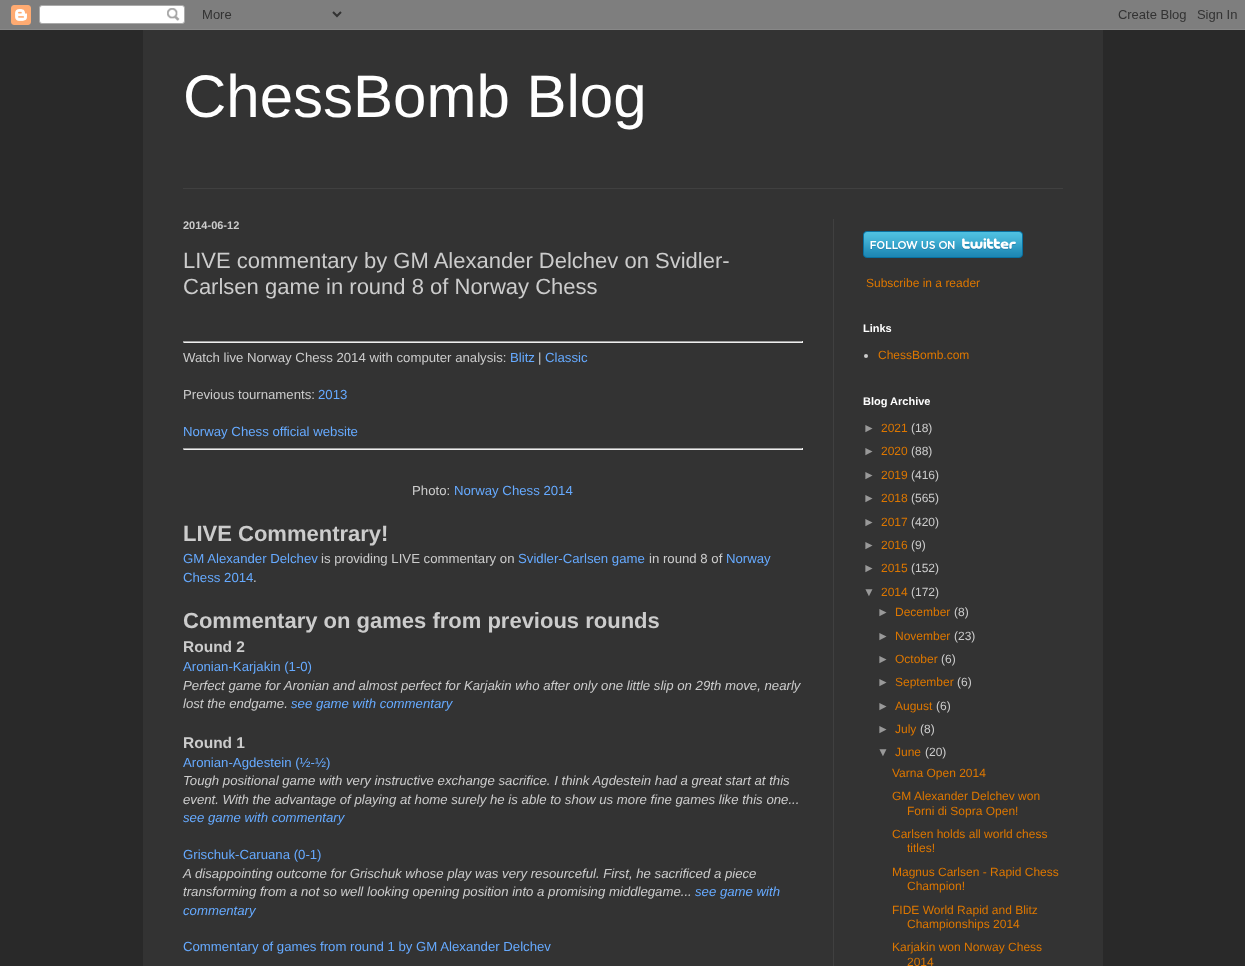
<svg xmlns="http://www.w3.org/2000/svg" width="1245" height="966">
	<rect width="100%" height="100%" fill="#292929" />
	<image x="0" y="0" width="1245" height="30" href="assets/img1.png" />
	<rect x="143" y="30" width="960" height="936" fill="#333333" />
	<text x="183" y="117" font-family="Liberation Sans" font-size="60" fill="#FFFFFF">ChessBomb Blog</text>
	<rect x="183" y="188" width="880" height="1" fill="#404040" />
	<rect x="833" y="219" width="1" height="747" fill="#404040" />
	<text x="183" y="229" font-family="Liberation Sans" font-size="11" font-weight="700" fill="#CCCCCC">2014-06-12</text>
	<g font-family="Liberation Sans" font-size="22" fill="#CCCCCC">
		<text x="183" y="268">LIVE commentary by GM Alexander Delchev on Svidler-</text>
		<text x="183" y="294">Carlsen game in round 8 of Norway Chess</text>
	</g>
	<rect x="183" y="341" width="620" height="1" fill="#9F9F9F" />
	<rect x="802" y="341" width="1" height="2" fill="#EEEEEE" />
	<rect x="183" y="342" width="620" height="1" fill="#EEEEEE" />
	<rect x="183" y="341" width="1" height="2" fill="#9F9F9F" />
	<text x="183" y="362" font-family="Liberation Sans" font-size="13.2" fill="#CCCCCC">Watch live Norway Chess 2014 with computer analysis:</text>
	<text x="510" y="362" font-family="Liberation Sans" font-size="13.2" fill="#66AAFF">Blitz</text>
	<text x="538" y="362" font-family="Liberation Sans" font-size="13.2" fill="#CCCCCC">|</text>
	<text x="545" y="362" font-family="Liberation Sans" font-size="13.2" fill="#66AAFF">Classic</text>
	<text x="183" y="399" font-family="Liberation Sans" font-size="13.2" fill="#CCCCCC">Previous tournaments:</text>
	<g font-family="Liberation Sans" font-size="13.2" fill="#66AAFF">
		<text x="318" y="399">2013</text>
		<text x="183" y="436">Norway Chess official website</text>
	</g>
	<rect x="183" y="448" width="620" height="1" fill="#9F9F9F" />
	<rect x="802" y="448" width="1" height="2" fill="#EEEEEE" />
	<rect x="183" y="449" width="620" height="1" fill="#EEEEEE" />
	<rect x="183" y="448" width="1" height="2" fill="#9F9F9F" />
	<text x="412" y="495" font-family="Liberation Sans" font-size="13.2" fill="#CCCCCC">Photo:</text>
	<text x="454" y="495" font-family="Liberation Sans" font-size="13.2" fill="#66AAFF">Norway Chess 2014</text>
	<text x="183" y="541" font-family="Liberation Sans" font-size="22" font-weight="700" fill="#CCCCCC">LIVE Commentrary!</text>
	<text x="183" y="563" font-family="Liberation Sans" font-size="13.2" fill="#66AAFF">GM Alexander Delchev</text>
	<text x="321" y="563" font-family="Liberation Sans" font-size="13.2" fill="#CCCCCC">is providing LIVE commentary on</text>
	<text x="518" y="563" font-family="Liberation Sans" font-size="13.2" fill="#66AAFF">Svidler-Carlsen game</text>
	<text x="649" y="563" font-family="Liberation Sans" font-size="13.2" fill="#CCCCCC">in round 8 of</text>
	<g font-family="Liberation Sans" font-size="13.2" fill="#66AAFF">
		<text x="726" y="563">Norway</text>
		<text x="183" y="582">Chess 2014</text>
	</g>
	<text x="253" y="582" font-family="Liberation Sans" font-size="13.2" fill="#CCCCCC">.</text>
	<text x="183" y="628" font-family="Liberation Sans" font-size="22" font-weight="700" fill="#CCCCCC">Commentary on games from previous rounds</text>
	<text x="183" y="652" font-family="Liberation Sans" font-size="15.5" font-weight="700" fill="#CCCCCC">Round 2</text>
	<text x="183" y="671" font-family="Liberation Sans" font-size="13.2" fill="#66AAFF">Aronian-Karjakin (1-0)</text>
	<g font-family="Liberation Sans" font-size="13.2" font-style="italic" fill="#CCCCCC">
		<text x="183" y="690">Perfect game for Aronian and almost perfect for Karjakin who after only one little slip on 29th move, nearly</text>
		<text x="183" y="708">lost the endgame.</text>
	</g>
	<text x="291" y="708" font-family="Liberation Sans" font-size="13.2" font-style="italic" fill="#66AAFF">see game with commentary</text>
	<text x="183" y="748" font-family="Liberation Sans" font-size="15.5" font-weight="700" fill="#CCCCCC">Round 1</text>
	<text x="183" y="767" font-family="Liberation Sans" font-size="13.2" fill="#66AAFF">Aronian-Agdestein (½-½)</text>
	<g font-family="Liberation Sans" font-size="13.2" font-style="italic" fill="#CCCCCC">
		<text x="183" y="785">Tough positional game with very instructive exchange sacrifice. I think Agdestein had a great start at this</text>
		<text x="183" y="804">event. With the advantage of playing at home surely he is able to show us more fine games like this one...</text>
	</g>
	<text x="183" y="822" font-family="Liberation Sans" font-size="13.2" font-style="italic" fill="#66AAFF">see game with commentary</text>
	<text x="183" y="859" font-family="Liberation Sans" font-size="13.2" fill="#66AAFF">Grischuk-Caruana (0-1)</text>
	<g font-family="Liberation Sans" font-size="13.2" font-style="italic" fill="#CCCCCC">
		<text x="183" y="878">A disappointing outcome for Grischuk whose play was very resourceful. First, he sacrificed a piece</text>
		<text x="183" y="896">transforming from a not so well looking opening position into a promising middlegame...</text>
	</g>
	<g font-family="Liberation Sans" font-size="13.2" font-style="italic" fill="#66AAFF">
		<text x="695" y="896">see game with</text>
		<text x="183" y="915">commentary</text>
	</g>
	<text x="183" y="951" font-family="Liberation Sans" font-size="13.2" fill="#66AAFF">Commentary of games from round 1 by GM Alexander Delchev</text>
	<image x="863" y="231" width="160" height="27" href="assets/img2.png" />
	<text x="866" y="287" font-family="Liberation Sans" font-size="12" fill="#DD7700">Subscribe in a reader</text>
	<text x="863" y="332" font-family="Liberation Sans" font-size="11" font-weight="700" fill="#FFFFFF">Links</text>
	<circle cx="866" cy="356" r="2" fill="#CCCCCC" />
	<text x="878" y="359" font-family="Liberation Sans" font-size="12" fill="#DD7700">ChessBomb.com</text>
	<text x="863" y="405" font-family="Liberation Sans" font-size="11" font-weight="700" fill="#FFFFFF">Blog Archive</text>
	<text x="863" y="432" font-family="Liberation Sans" font-size="12" fill="#999999">►</text>
	<text x="881" y="432" font-family="Liberation Sans" font-size="12" fill="#DD7700">2021</text>
	<text x="911" y="432" font-family="Liberation Sans" font-size="12" fill="#CCCCCC">(18)</text>
	<text x="863" y="455" font-family="Liberation Sans" font-size="12" fill="#999999">►</text>
	<text x="881" y="455" font-family="Liberation Sans" font-size="12" fill="#DD7700">2020</text>
	<text x="911" y="455" font-family="Liberation Sans" font-size="12" fill="#CCCCCC">(88)</text>
	<text x="863" y="479" font-family="Liberation Sans" font-size="12" fill="#999999">►</text>
	<text x="881" y="479" font-family="Liberation Sans" font-size="12" fill="#DD7700">2019</text>
	<text x="911" y="479" font-family="Liberation Sans" font-size="12" fill="#CCCCCC">(416)</text>
	<text x="863" y="502" font-family="Liberation Sans" font-size="12" fill="#999999">►</text>
	<text x="881" y="502" font-family="Liberation Sans" font-size="12" fill="#DD7700">2018</text>
	<text x="911" y="502" font-family="Liberation Sans" font-size="12" fill="#CCCCCC">(565)</text>
	<text x="863" y="526" font-family="Liberation Sans" font-size="12" fill="#999999">►</text>
	<text x="881" y="526" font-family="Liberation Sans" font-size="12" fill="#DD7700">2017</text>
	<text x="911" y="526" font-family="Liberation Sans" font-size="12" fill="#CCCCCC">(420)</text>
	<text x="863" y="549" font-family="Liberation Sans" font-size="12" fill="#999999">►</text>
	<text x="881" y="549" font-family="Liberation Sans" font-size="12" fill="#DD7700">2016</text>
	<text x="911" y="549" font-family="Liberation Sans" font-size="12" fill="#CCCCCC">(9)</text>
	<text x="863" y="572" font-family="Liberation Sans" font-size="12" fill="#999999">►</text>
	<text x="881" y="572" font-family="Liberation Sans" font-size="12" fill="#DD7700">2015</text>
	<text x="911" y="572" font-family="Liberation Sans" font-size="12" fill="#CCCCCC">(152)</text>
	<text x="863" y="596" font-family="Liberation Sans" font-size="12" fill="#999999">▼</text>
	<text x="881" y="596" font-family="Liberation Sans" font-size="12" fill="#DD7700">2014</text>
	<text x="911" y="596" font-family="Liberation Sans" font-size="12" fill="#CCCCCC">(172)</text>
	<text x="877" y="616" font-family="Liberation Sans" font-size="12" fill="#999999">►</text>
	<text x="895" y="616" font-family="Liberation Sans" font-size="12" fill="#DD7700">December</text>
	<text x="954" y="616" font-family="Liberation Sans" font-size="12" fill="#CCCCCC">(8)</text>
	<text x="877" y="640" font-family="Liberation Sans" font-size="12" fill="#999999">►</text>
	<text x="895" y="640" font-family="Liberation Sans" font-size="12" fill="#DD7700">November</text>
	<text x="954" y="640" font-family="Liberation Sans" font-size="12" fill="#CCCCCC">(23)</text>
	<text x="877" y="663" font-family="Liberation Sans" font-size="12" fill="#999999">►</text>
	<text x="895" y="663" font-family="Liberation Sans" font-size="12" fill="#DD7700">October</text>
	<text x="941" y="663" font-family="Liberation Sans" font-size="12" fill="#CCCCCC">(6)</text>
	<text x="877" y="686" font-family="Liberation Sans" font-size="12" fill="#999999">►</text>
	<text x="895" y="686" font-family="Liberation Sans" font-size="12" fill="#DD7700">September</text>
	<text x="957" y="686" font-family="Liberation Sans" font-size="12" fill="#CCCCCC">(6)</text>
	<text x="877" y="710" font-family="Liberation Sans" font-size="12" fill="#999999">►</text>
	<text x="895" y="710" font-family="Liberation Sans" font-size="12" fill="#DD7700">August</text>
	<text x="936" y="710" font-family="Liberation Sans" font-size="12" fill="#CCCCCC">(6)</text>
	<text x="877" y="733" font-family="Liberation Sans" font-size="12" fill="#999999">►</text>
	<text x="895" y="733" font-family="Liberation Sans" font-size="12" fill="#DD7700">July</text>
	<text x="920" y="733" font-family="Liberation Sans" font-size="12" fill="#CCCCCC">(8)</text>
	<text x="877" y="756" font-family="Liberation Sans" font-size="12" fill="#999999">▼</text>
	<text x="895" y="756" font-family="Liberation Sans" font-size="12" fill="#DD7700">June</text>
	<text x="925" y="756" font-family="Liberation Sans" font-size="12" fill="#CCCCCC">(20)</text>
	<g font-family="Liberation Sans" font-size="12" fill="#DD7700">
		<text x="892" y="777">Varna Open 2014</text>
		<text x="892" y="800">GM Alexander Delchev won</text>
		<text x="907" y="815">Forni di Sopra Open!</text>
		<text x="892" y="838">Carlsen holds all world chess</text>
		<text x="907" y="852">titles!</text>
		<text x="892" y="876">Magnus Carlsen - Rapid Chess</text>
		<text x="907" y="890">Champion!</text>
		<text x="892" y="914">FIDE World Rapid and Blitz</text>
		<text x="907" y="928">Championships 2014</text>
		<text x="892" y="951">Karjakin won Norway Chess</text>
		<text x="907" y="966">2014</text>
	</g>
</svg>
